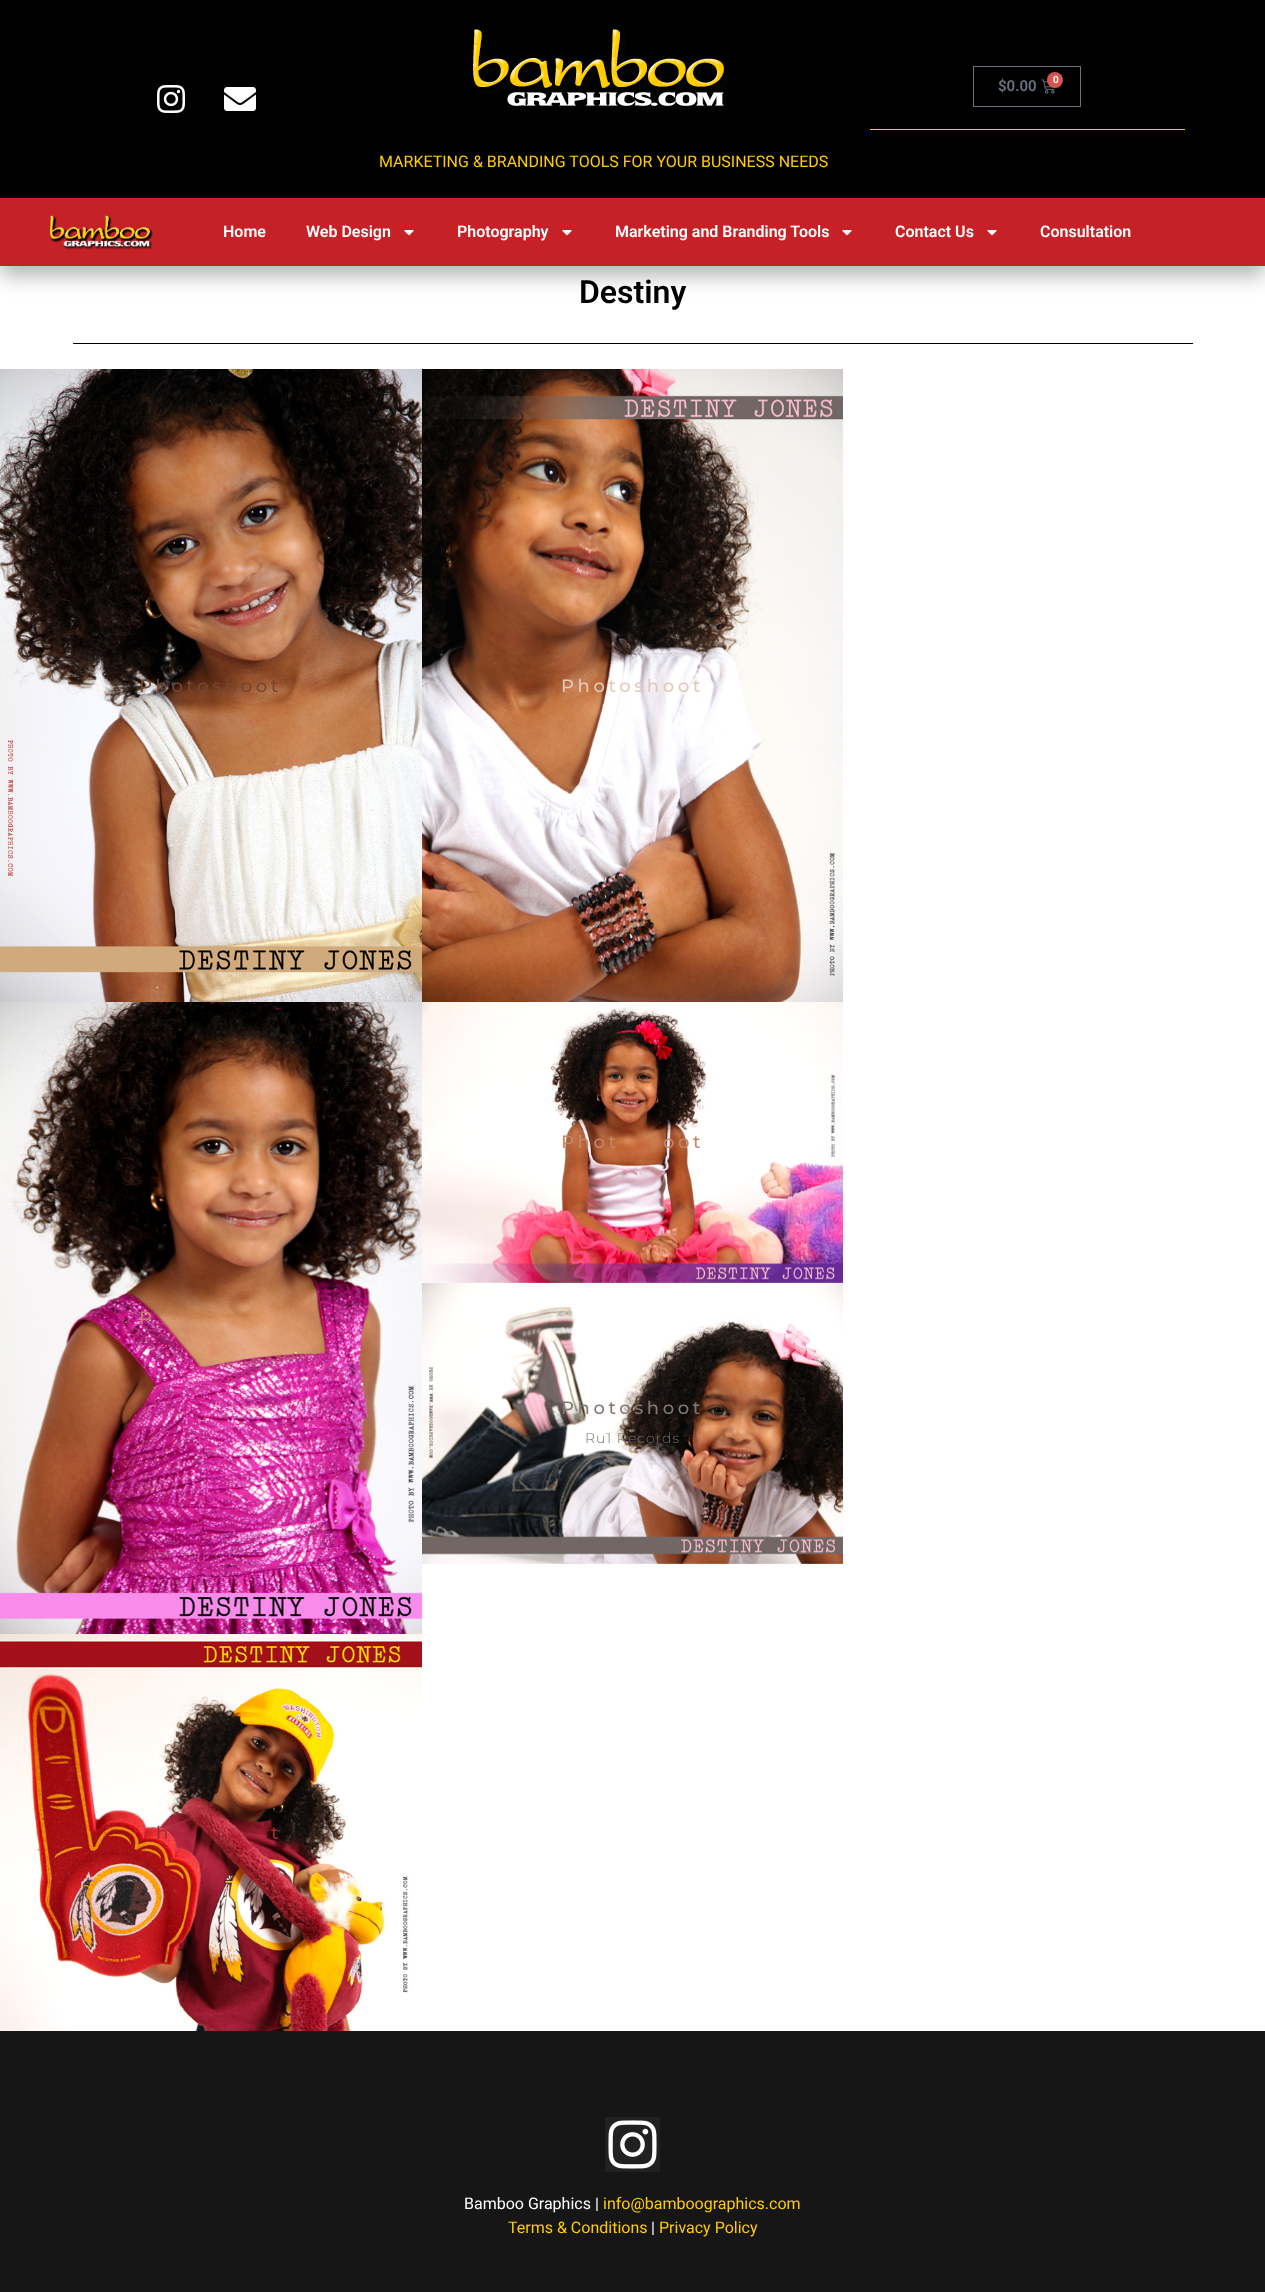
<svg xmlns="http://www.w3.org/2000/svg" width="1265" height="2292">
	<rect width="100%" height="100%" fill="#FFFFFF" />
	<rect x="0" y="0" width="1265" height="198" fill="#000000" />
	<image x="157" y="85" width="28" height="28" href="assets/img1.png" />
	<image x="224" y="87" width="32" height="24" href="assets/img2.png" />
	<rect x="973.5" y="66.5" width="107" height="40" fill="none" stroke="#69727D" />
	<text x="998" y="91" font-family="Roboto" font-size="15" font-weight="600" fill="#69727D">$0.00</text>
	<image x="1041" y="79" width="14" height="15" href="assets/img3.png" />
	<circle cx="1055" cy="80" r="8" fill="#D9534F" />
	<text x="1053" y="83" font-family="Roboto" font-size="10" font-weight="600" fill="#FFFFFF">0</text>
	<rect x="870" y="129" width="315" height="1" fill="#FFCC00" />
	<image x="473" y="29" width="256" height="80" href="assets/img4.png" />
	<text x="379" y="167" font-family="Roboto" font-size="16" fill="#FFCC00">MARKETING &amp; BRANDING TOOLS FOR YOUR BUSINESS NEEDS</text>
	<rect x="0" y="208" width="1265" height="68" fill="#000000" fill-opacity="0.29" filter="blur(10px)" />
	<rect x="0" y="198" width="1265" height="68" fill="#C62127" />
	<image x="50" y="215" width="103" height="35" href="assets/img5.png" />
	<g font-family="Roboto" font-size="16" font-weight="600" fill="#FFFFFF">
		<text x="223" y="237">Home</text>
		<text x="306" y="237">Web Design</text>
	</g>
	<image x="404" y="230" width="10" height="6" href="assets/img6.png" />
	<text x="457" y="237" font-family="Roboto" font-size="16" font-weight="600" fill="#FFFFFF">Photography</text>
	<image x="562" y="230" width="10" height="6" href="assets/img6.png" />
	<text x="615" y="237" font-family="Roboto" font-size="16" font-weight="600" fill="#FFFFFF">Marketing and Branding Tools</text>
	<image x="842" y="230" width="10" height="6" href="assets/img6.png" />
	<text x="895" y="237" font-family="Roboto" font-size="16" font-weight="600" fill="#FFFFFF">Contact Us</text>
	<image x="987" y="230" width="10" height="6" href="assets/img6.png" />
	<text x="1040" y="237" font-family="Roboto" font-size="16" font-weight="600" fill="#FFFFFF">Consultation</text>
	<text x="579" y="303" font-family="Roboto" font-size="32" font-weight="600" fill="#000000">Destiny</text>
	<rect x="73" y="343" width="1120" height="1" fill="#000000" />
	<image x="0" y="369" width="422" height="633" href="assets/img7.png" />
	<text x="139" y="692" font-family="Montserrat" font-size="18" font-weight="500" letter-spacing="3.6" fill="#744731">Photoshoot</text>
	<image x="0" y="1002" width="422" height="632" href="assets/img8.png" />
	<text x="139" y="1324" font-family="Montserrat" font-size="18" font-weight="500" letter-spacing="3.6" fill="#CE7D65">P</text>
	<image x="0" y="1634" width="422" height="397" href="assets/img9.png" />
	<g font-family="Montserrat" font-size="18" font-weight="500" letter-spacing="3.6" fill="#A62936">
		<text x="156" y="1839">h</text>
		<text x="271" y="1839">t</text>
	</g>
	<image x="422" y="369" width="421" height="633" href="assets/img10.png" />
	<text x="561" y="692" font-family="Montserrat" font-size="18" font-weight="500" letter-spacing="3.6" fill="#E3C9BB">Photoshoot</text>
	<image x="422" y="1002" width="421" height="281" href="assets/img11.png" />
	<g font-family="Montserrat" font-size="18" font-weight="500" letter-spacing="3.6" fill="#C68665">
		<text x="561" y="1148">Phot</text>
		<text x="663" y="1148">oot</text>
	</g>
	<image x="422" y="1283" width="421" height="281" href="assets/img12.png" />
	<text x="561" y="1414" font-family="Montserrat" font-size="18" font-weight="500" letter-spacing="3.6" fill="#807975">Photoshoot</text>
	<text x="585" y="1443" font-family="Montserrat" font-size="14" font-weight="300" letter-spacing="1" fill="#756F6B">Ru1 Records</text>
	<rect x="0" y="2031" width="1265" height="261" fill="#161616" />
	<rect x="605" y="2117" width="55" height="55" fill="#212121" />
	<image x="608" y="2120" width="49" height="49" href="assets/img13.png" />
	<text x="464" y="2209" font-family="Roboto" font-size="16" fill="#FFFFFF">Bamboo Graphics |</text>
	<g font-family="Roboto" font-size="16" fill="#FFCC00">
		<text x="603" y="2209">info@bamboographics.com</text>
		<text x="508" y="2233">Terms &amp; Conditions</text>
	</g>
	<text x="651" y="2233" font-family="Roboto" font-size="16" fill="#FFFFFF">|</text>
	<text x="659" y="2233" font-family="Roboto" font-size="16" fill="#FFCC00">Privacy Policy</text>
</svg>
